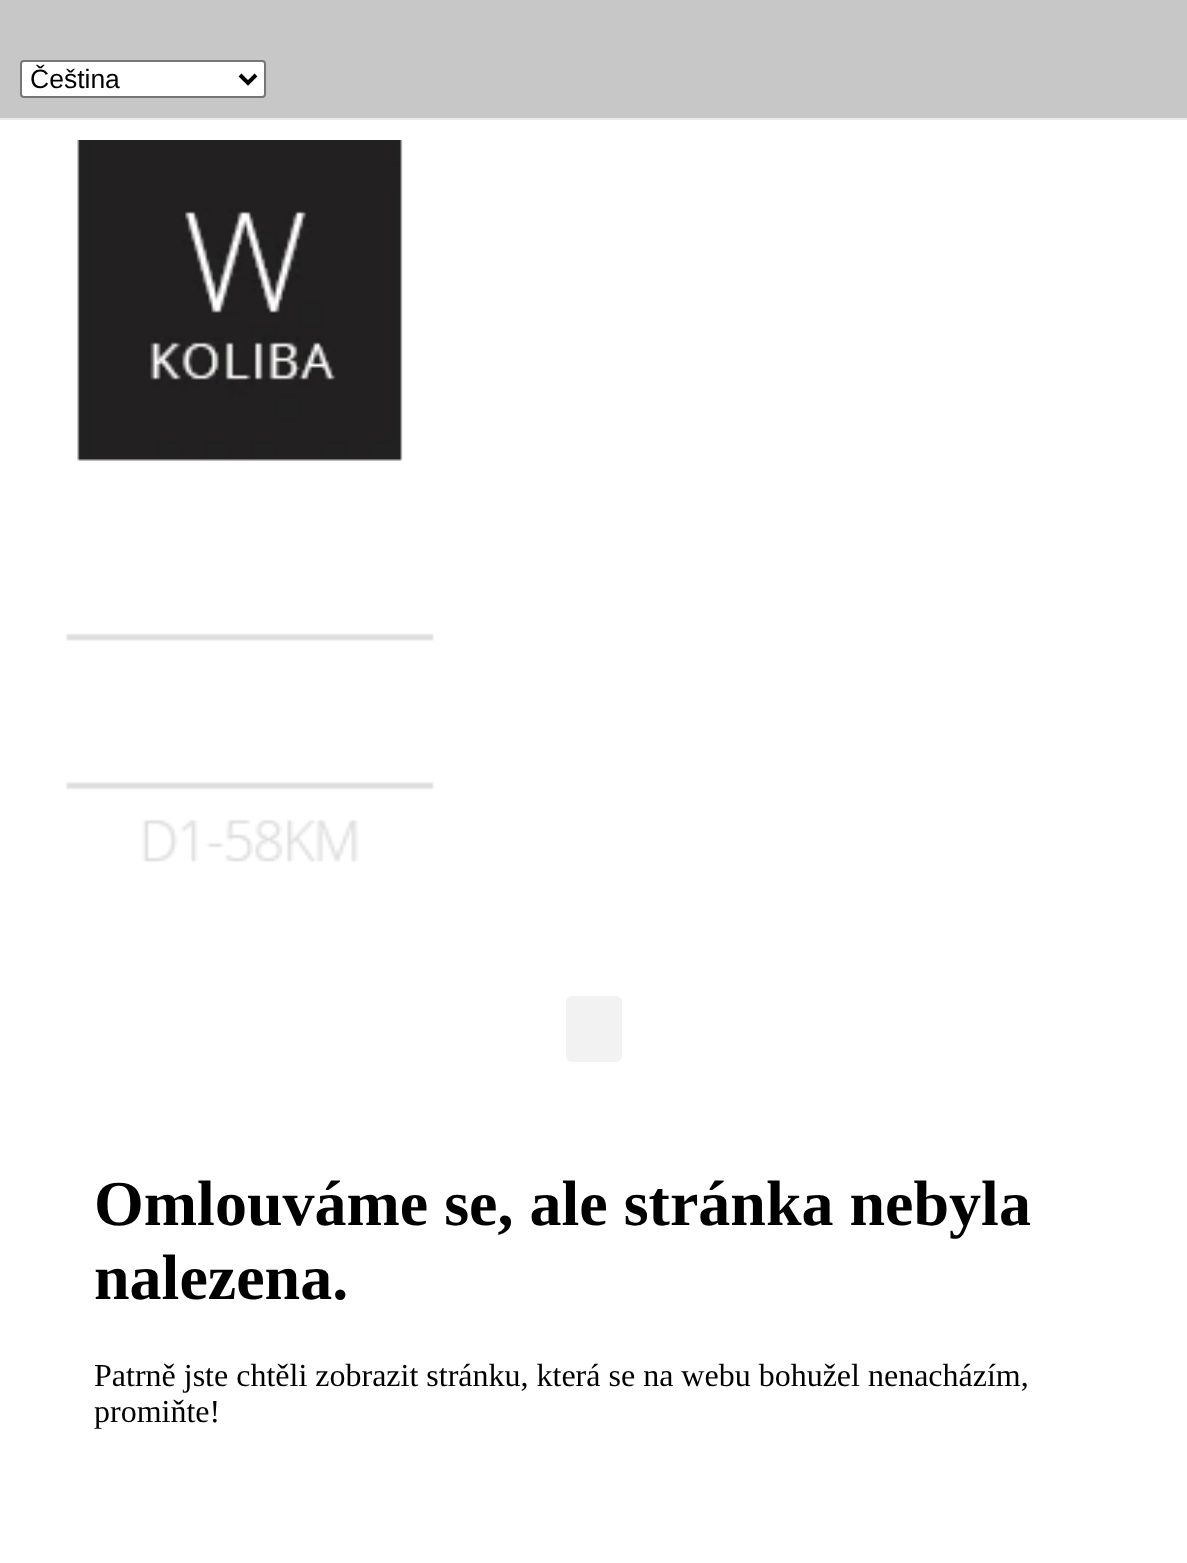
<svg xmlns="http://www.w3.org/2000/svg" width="1187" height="1563">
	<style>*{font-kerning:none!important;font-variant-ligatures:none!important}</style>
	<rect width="100%" height="100%" fill="#FFFFFF" />
	<rect x="0" y="0" width="1187" height="118" fill="#C7C7C7" />
	<rect x="0" y="118" width="1187" height="2" fill="#EBE9E9" />
	<rect x="21" y="61" width="244" height="36" rx="3" fill="#FFFFFF" stroke="#767676" stroke-width="2" />
	<path d="M240 75L248 83L256 75" fill="none" stroke="#000000" stroke-width="4" />
	<text x="30" y="88" font-family="Liberation Sans" font-size="26.5" fill="#000000">Čeština</text>
	<image x="65" y="140" width="369" height="722" href="assets/img1.png" />
	<rect x="566" y="996" width="56" height="66" rx="6" fill="#F2F2F2" />
	<g font-family="Liberation Serif" font-size="64" font-weight="700" fill="#000000">
		<text x="94" y="1225">Omlouváme se, ale stránka nebyla</text>
		<text x="94" y="1299">nalezena.</text>
	</g>
	<g font-family="Liberation Serif" font-size="32" fill="#000000">
		<text x="94" y="1386">Patrně jste chtěli zobrazit stránku, která se na webu bohužel nenacházím,</text>
		<text x="94" y="1422">promiňte!</text>
	</g>
</svg>
